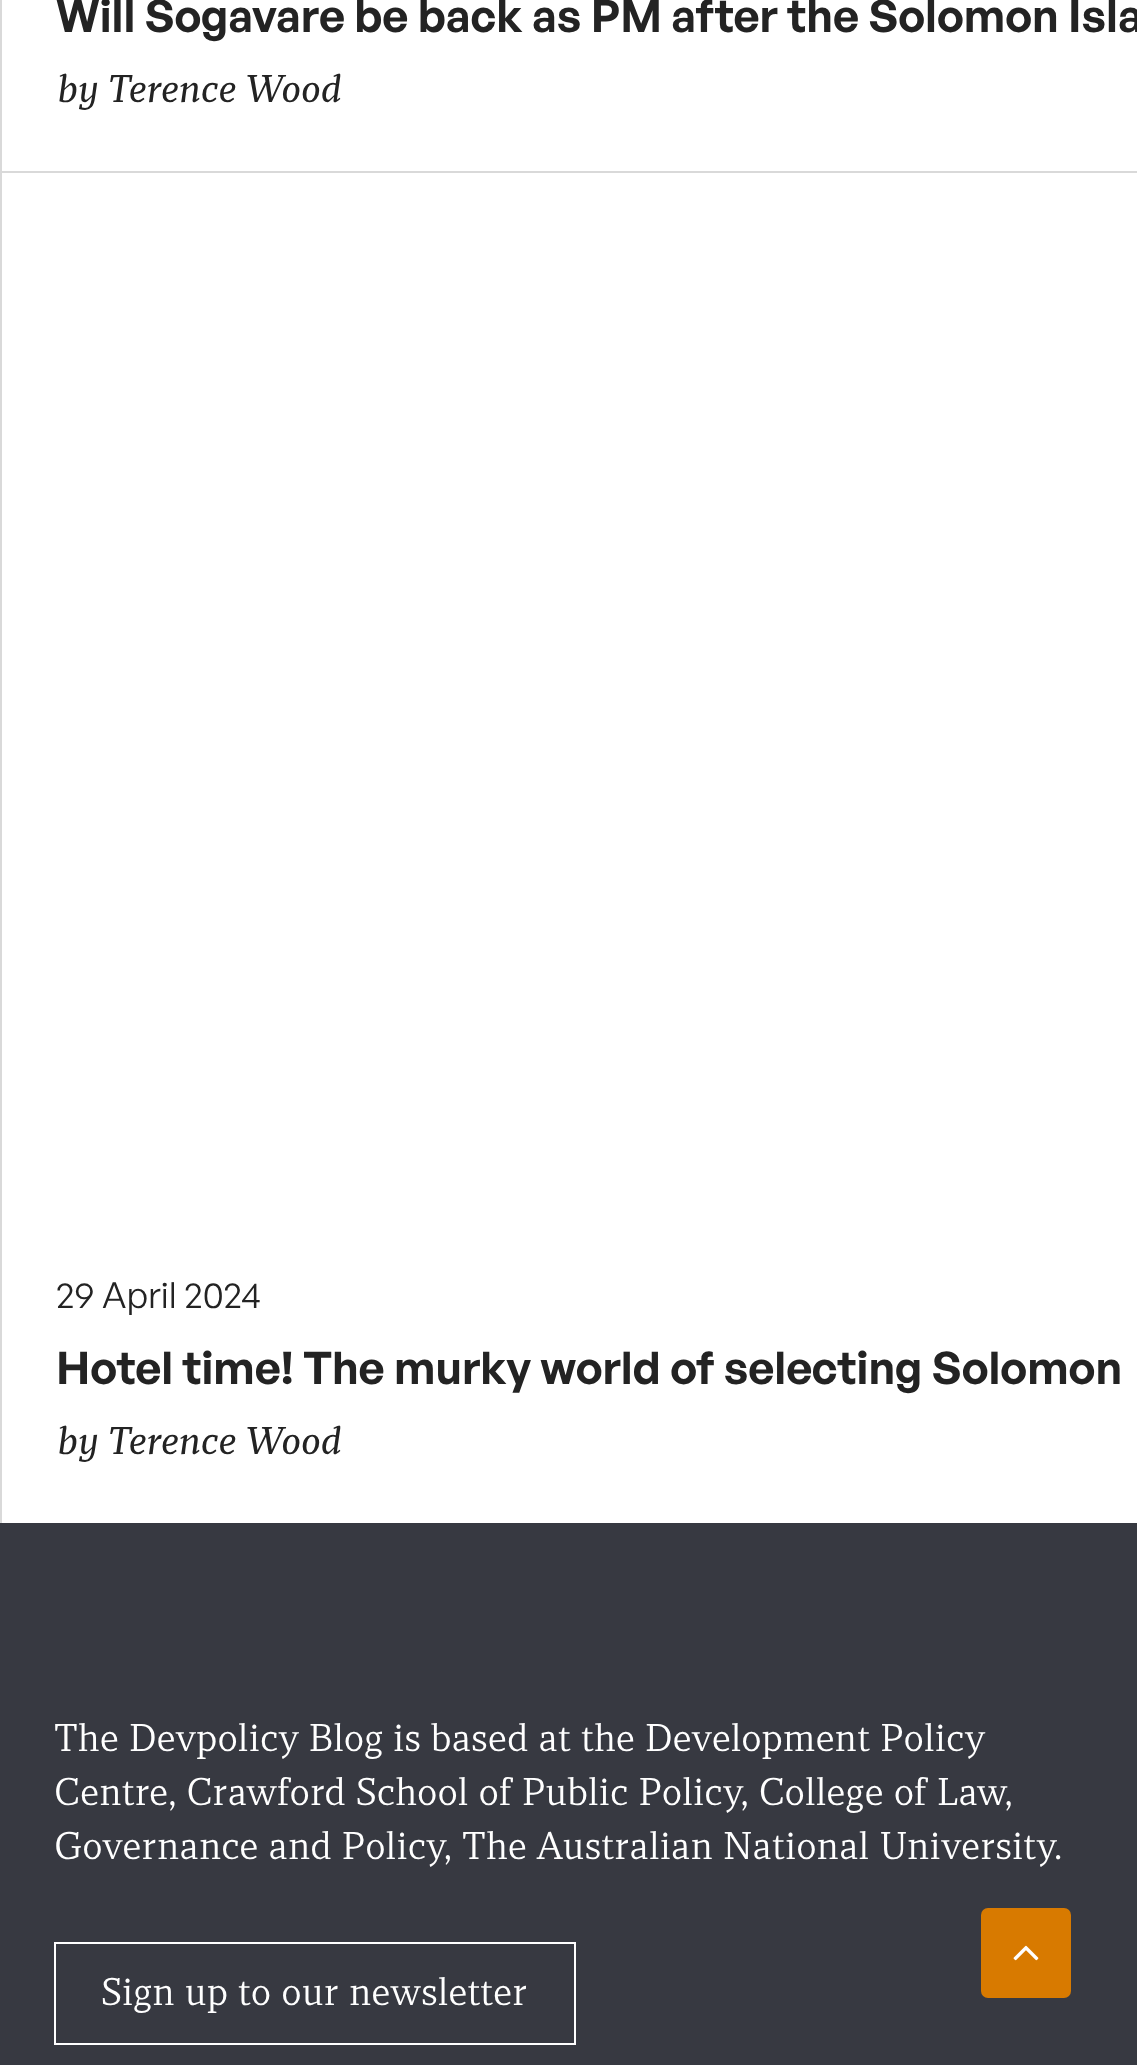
<svg xmlns="http://www.w3.org/2000/svg" width="1137" height="2065">
	<rect width="100%" height="100%" fill="#FFFFFF" />
	<rect x="0" y="0" width="2" height="1523" fill="#D9D9D9" />
	<text x="56" y="32" font-family="General Sans" font-size="45" font-weight="600" fill="#232323">Will Sogavare be back as PM after the Solomon Isla</text>
	<text x="56" y="102" font-family="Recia" font-size="36" font-weight="500" font-style="italic" fill="#232323">by Terence Wood</text>
	<rect x="2" y="171" width="1135" height="2" fill="#D9D9D9" />
	<text x="56" y="1308" font-family="'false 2'" font-size="36" fill="#232323">29 April 2024</text>
	<text x="56" y="1384" font-family="General Sans" font-size="45" font-weight="600" fill="#232323">Hotel time! The murky world of selecting Solomon</text>
	<text x="56" y="1454" font-family="Recia" font-size="36" font-weight="500" font-style="italic" fill="#232323">by Terence Wood</text>
	<rect x="0" y="1523" width="1137" height="542" fill="#373941" />
	<g font-family="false" font-size="36" fill="#FFFFFF">
		<text x="54" y="1751">The Devpolicy Blog is based at the Development Policy</text>
		<text x="54" y="1805">Centre, Crawford School of Public Policy, College of Law,</text>
		<text x="54" y="1859">Governance and Policy, The Australian National University.</text>
	</g>
	<rect x="55" y="1943" width="520" height="101" fill="none" stroke="#FFFFFF" stroke-width="2" />
	<text x="101" y="2005" font-family="false" font-size="36" fill="#FFFFFF">Sign up to our newsletter</text>
	<rect x="981" y="1908" width="90" height="90" rx="7" fill="#D87A00" />
	<image x="1013" y="1945" width="26" height="16" href="assets/img1.png" />
</svg>
